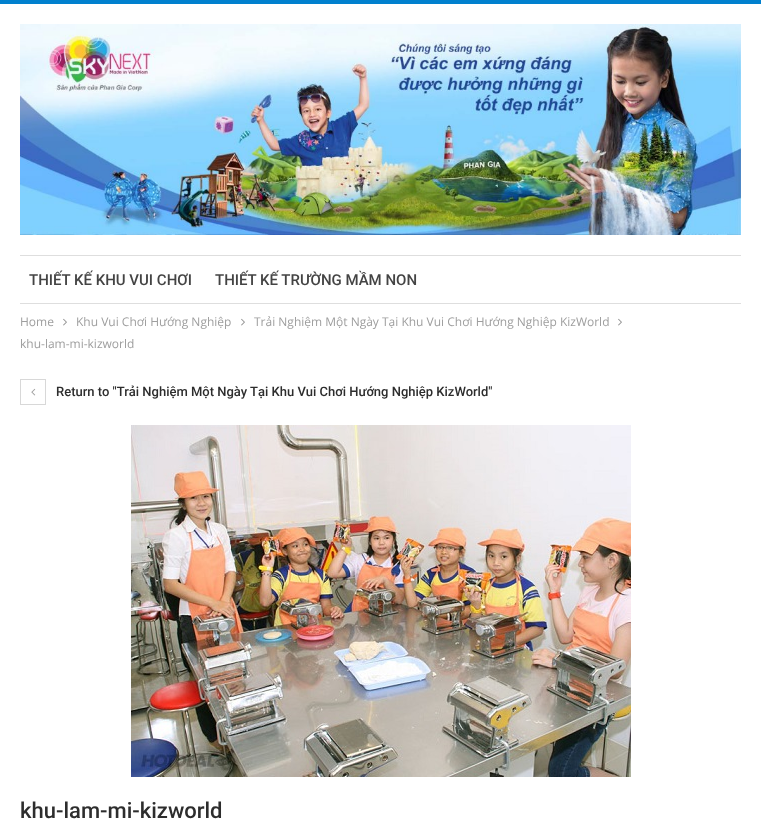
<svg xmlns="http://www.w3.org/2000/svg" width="761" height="827">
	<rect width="100%" height="100%" fill="#FFFFFF" />
	<rect x="0" y="0" width="761" height="4" fill="#0080CE" />
	<image x="20" y="24" width="721" height="211" href="assets/img1.png" />
	<rect x="20" y="255" width="721" height="1" fill="#DEDEDE" />
	<rect x="20" y="303" width="721" height="1" fill="#DEDEDE" />
	<g font-family="Roboto" font-size="15" font-weight="500" fill="#444444">
		<text x="29" y="285">THIẾT KẾ KHU VUI CHƠI</text>
		<text x="215" y="285">THIẾT KẾ TRƯỜNG MẦM NON</text>
	</g>
	<text x="20" y="326" font-family="Open Sans" font-size="12" fill="#9E9E9E">Home</text>
	<image x="63" y="318" width="4" height="8" href="assets/img2.png" />
	<text x="76" y="326" font-family="Open Sans" font-size="12" fill="#9E9E9E">Khu Vui Chơi Hướng Nghiệp</text>
	<image x="241" y="318" width="4" height="8" href="assets/img2.png" />
	<text x="254" y="326" font-family="Open Sans" font-size="12" fill="#9E9E9E">Trải Nghiệm Một Ngày Tại Khu Vui Chơi Hướng Nghiệp KizWorld</text>
	<image x="618" y="318" width="4" height="8" href="assets/img2.png" />
	<text x="20" y="348" font-family="Open Sans" font-size="12" fill="#9E9E9E">khu-lam-mi-kizworld</text>
	<rect x="20.5" y="379.5" width="25" height="25" fill="none" stroke="#D8D8D8" />
	<image x="31" y="388" width="5" height="8" href="assets/img3.png" />
	<text x="56" y="396" font-family="Roboto" font-size="13" font-weight="500" fill="#2D2D2D">Return to "Trải Nghiệm Một Ngày Tại Khu Vui Chơi Hướng Nghiệp KizWorld"</text>
	<image x="131" y="425" width="500" height="352" href="assets/img4.png" />
	<text x="20" y="818" font-family="Roboto" font-size="22" font-weight="500" fill="#2D2D2D">khu-lam-mi-kizworld</text>
</svg>
